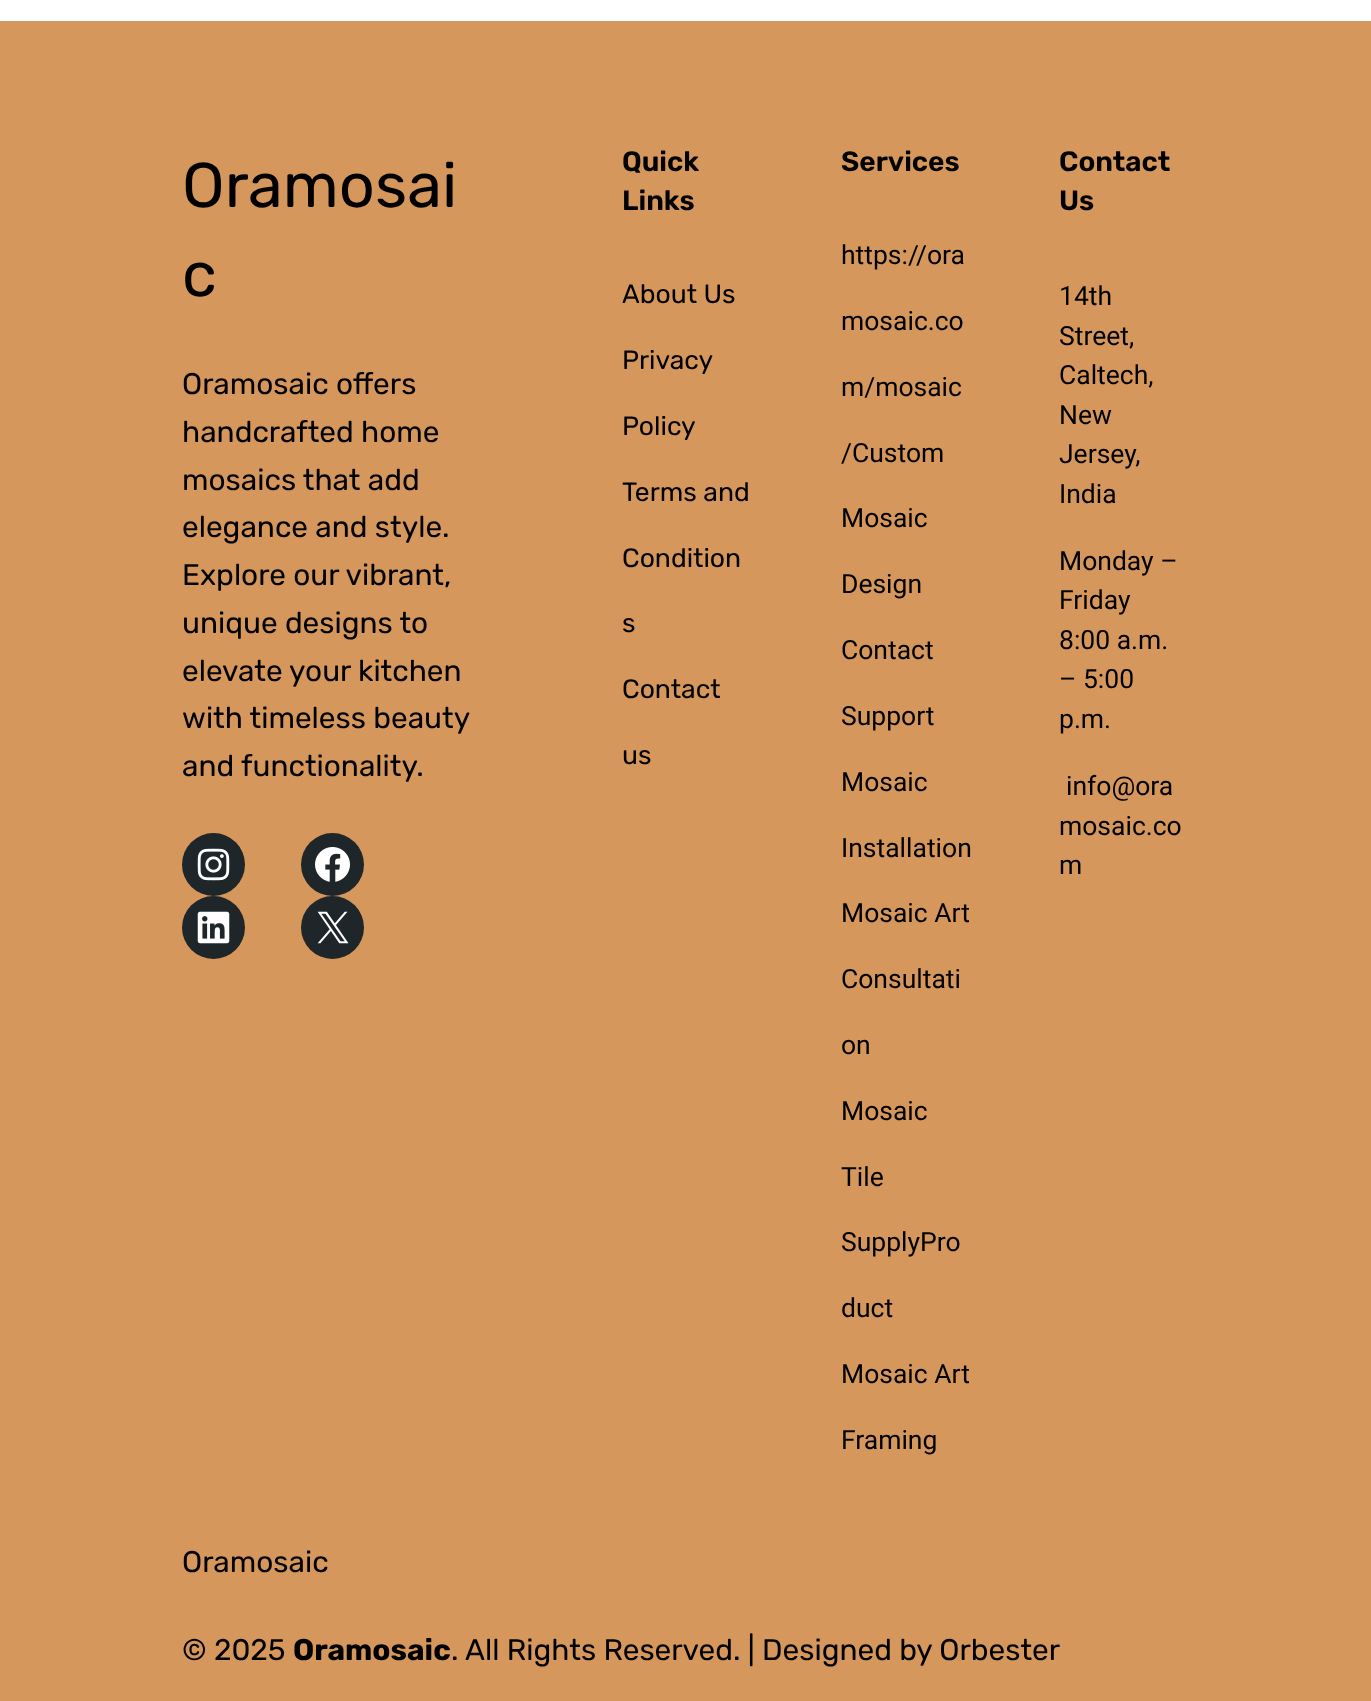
<svg xmlns="http://www.w3.org/2000/svg" width="1371" height="1701">
	<rect width="100%" height="100%" fill="#FFFFFF" />
	<rect x="0" y="21" width="1371" height="1680" fill="#D6975C" />
	<g font-family="Rubik" font-size="63" fill="#000000">
		<text x="182" y="207">Oramosai</text>
		<text x="182" y="296">c</text>
	</g>
	<g font-family="Rubik" font-size="29.8" fill="#000000">
		<text x="182" y="394">Oramosaic offers</text>
		<text x="182" y="442">handcrafted home</text>
		<text x="182" y="490">mosaics that add</text>
		<text x="182" y="537">elegance and style.</text>
		<text x="182" y="585">Explore our vibrant,</text>
		<text x="182" y="633">unique designs to</text>
		<text x="182" y="681">elevate your kitchen</text>
		<text x="182" y="728">with timeless beauty</text>
		<text x="182" y="776">and functionality.</text>
	</g>
	<circle cx="213.5" cy="864.5" r="31.5" fill="#1E262A" />
	<image x="197" y="848" width="33" height="33" href="assets/img1.png" />
	<circle cx="332.5" cy="864.5" r="31.5" fill="#1E262A" />
	<image x="315" y="847" width="35" height="35" href="assets/img2.png" />
	<circle cx="213.5" cy="927.5" r="31.5" fill="#1E262A" />
	<image x="197" y="911" width="33" height="33" href="assets/img3.png" />
	<circle cx="332.5" cy="927.5" r="31.5" fill="#1E262A" />
	<image x="317" y="911" width="32" height="33" href="assets/img4.png" />
	<g font-family="Rubik" font-size="28" font-weight="600" fill="#000000">
		<text x="622" y="171">Quick</text>
		<text x="622" y="210">Links</text>
	</g>
	<g font-family="Rubik" font-size="26.5" fill="#000000">
		<text x="622" y="303">About Us</text>
		<text x="622" y="369">Privacy</text>
		<text x="622" y="435">Policy</text>
		<text x="622" y="501">Terms and</text>
		<text x="622" y="567">Condition</text>
		<text x="622" y="632">s</text>
		<text x="622" y="698">Contact</text>
		<text x="622" y="764">us</text>
	</g>
	<text x="841" y="171" font-family="Rubik" font-size="28" font-weight="600" fill="#000000">Services</text>
	<g font-family="Roboto" font-size="26.5" fill="#000000">
		<text x="841" y="264">https://ora</text>
		<text x="841" y="330">mosaic.co</text>
		<text x="841" y="396">m/mosaic</text>
		<text x="841" y="462">/Custom</text>
		<text x="841" y="527">Mosaic</text>
		<text x="841" y="593">Design</text>
		<text x="841" y="659">Contact</text>
		<text x="841" y="725">Support</text>
		<text x="841" y="791">Mosaic</text>
		<text x="841" y="857">Installation</text>
		<text x="841" y="922">Mosaic Art</text>
		<text x="841" y="988">Consultati</text>
		<text x="841" y="1054">on</text>
		<text x="841" y="1120">Mosaic</text>
		<text x="841" y="1186">Tile</text>
		<text x="841" y="1251">SupplyPro</text>
		<text x="841" y="1317">duct</text>
		<text x="841" y="1383">Mosaic Art</text>
		<text x="841" y="1449">Framing</text>
	</g>
	<g font-family="Rubik" font-size="28" font-weight="600" fill="#000000">
		<text x="1059" y="171">Contact</text>
		<text x="1059" y="210">Us</text>
	</g>
	<g font-family="Roboto" font-size="26.5" fill="#000000">
		<text x="1059" y="305">14th</text>
		<text x="1059" y="345">Street,</text>
		<text x="1059" y="384">Caltech,</text>
		<text x="1059" y="424">New</text>
		<text x="1059" y="463">Jersey,</text>
		<text x="1059" y="503">India</text>
		<text x="1059" y="570">Monday –</text>
		<text x="1059" y="609">Friday</text>
		<text x="1059" y="649">8:00 a.m.</text>
		<text x="1059" y="688">– 5:00</text>
		<text x="1059" y="728">p.m.</text>
		<text x="1066" y="795">info@ora</text>
		<text x="1059" y="835">mosaic.co</text>
		<text x="1059" y="874">m</text>
	</g>
	<g font-family="Rubik" font-size="29.8" fill="#000000">
		<text x="182" y="1572">Oramosaic</text>
		<text x="182" y="1660">© 2025</text>
	</g>
	<text x="293" y="1660" font-family="Rubik" font-size="29.8" font-weight="700" fill="#000000">Oramosaic</text>
	<text x="451" y="1660" font-family="Rubik" font-size="29.8" fill="#000000">. All Rights Reserved. | Designed by Orbester</text>
</svg>
